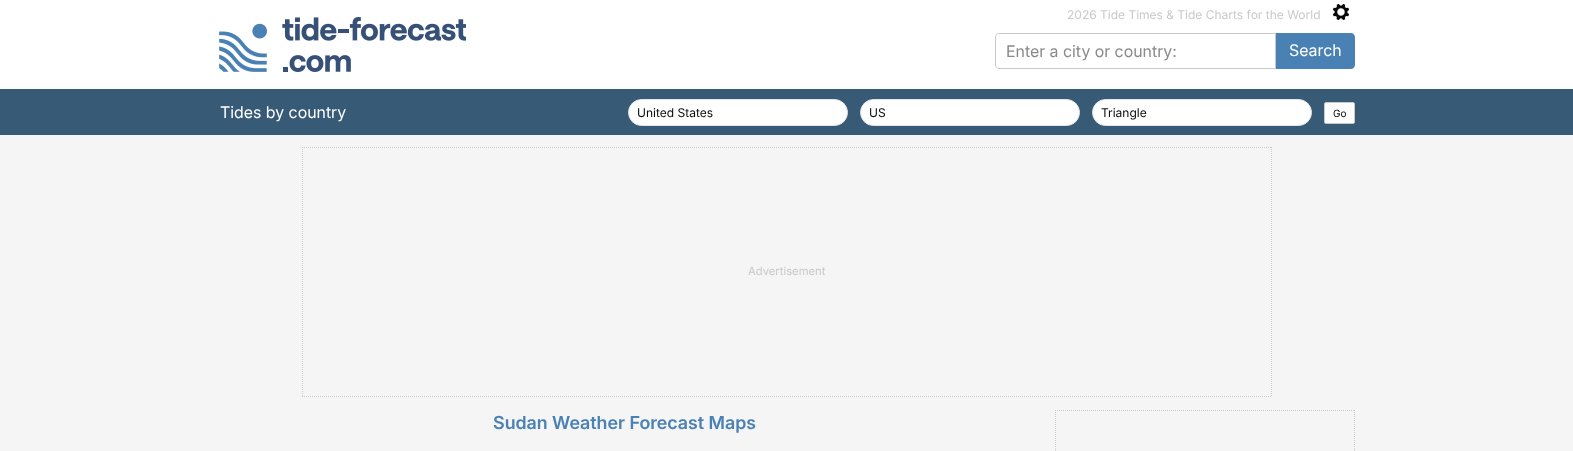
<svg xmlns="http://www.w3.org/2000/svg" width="1573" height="451">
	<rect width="100%" height="100%" fill="#F5F5F5" />
	<rect x="0" y="0" width="1573" height="89" fill="#FFFFFF" />
	<image x="219" y="17" width="247" height="55" href="assets/img1.png" />
	<text x="1067" y="19" font-family="Inter" font-size="12" fill="#C9C9C9">2026 Tide Times &amp; Tide Charts for the World</text>
	<image x="1333" y="4" width="16" height="16" href="assets/img2.png" />
	<path d="M999 33.5H1275.5V68.5H999C997 68.5 995.5 67 995.5 65V37C995.5 35 997 33.5 999 33.5Z" fill="none" stroke="#C9C9C9" />
	<text x="1006" y="57" font-family="'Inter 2'" font-size="16" fill="#8A8A8A">Enter a city or country:</text>
	<path d="M1276 33H1351C1353 33 1355 35 1355 37V65C1355 67 1353 69 1351 69H1276Z" fill="#4A81B5" />
	<text x="1289" y="56" font-family="'Inter 2'" font-size="16" fill="#FFFFFF">Search</text>
	<rect x="0" y="89" width="1573" height="46" fill="#375A77" />
	<text x="220" y="118" font-family="'Inter 2'" font-size="16" fill="#FFFFFF">Tides by country</text>
	<rect x="628.5" y="99.5" width="219" height="26" rx="13" fill="#FFFFFF" stroke="#E6E6E6" />
	<text x="637" y="117" font-family="Inter" font-size="12" fill="#0A0A0A">United States</text>
	<rect x="860.5" y="99.5" width="219" height="26" rx="13" fill="#FFFFFF" stroke="#E6E6E6" />
	<text x="869" y="117" font-family="Inter" font-size="12" fill="#0A0A0A">US</text>
	<rect x="1092.5" y="99.5" width="219" height="26" rx="13" fill="#FFFFFF" stroke="#E6E6E6" />
	<text x="1101" y="117" font-family="Inter" font-size="12" fill="#0A0A0A">Triangle</text>
	<rect x="1324.5" y="102.5" width="30" height="21" rx="1.5" fill="#FFFFFF" stroke="#C9C9C9" />
	<text x="1333" y="117" font-family="Inter" font-size="10" fill="#000000">Go</text>
	<path d="M302 147.5H1272" fill="none" stroke="#CCCCCC" stroke-dasharray="1 1" />
	<path d="M1271.5 147V397" fill="none" stroke="#CCCCCC" stroke-dasharray="1 1" />
	<path d="M302 396.5H1272" fill="none" stroke="#CCCCCC" stroke-dasharray="1 1" />
	<path d="M302.5 147V397" fill="none" stroke="#CCCCCC" stroke-dasharray="1 1" />
	<text x="748" y="275" font-family="Inter" font-size="11.25" fill="#C9C9C9">Advertisement</text>
	<text x="493" y="429" font-family="Inter" font-size="18" font-weight="600" fill="#4A81B5">Sudan Weather Forecast Maps</text>
	<path d="M1055 410.5H1355" fill="none" stroke="#CCCCCC" stroke-dasharray="1 1" />
	<path d="M1354.5 410V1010" fill="none" stroke="#CCCCCC" stroke-dasharray="1 1" />
	<path d="M1055.5 410V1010" fill="none" stroke="#CCCCCC" stroke-dasharray="1 1" />
</svg>
